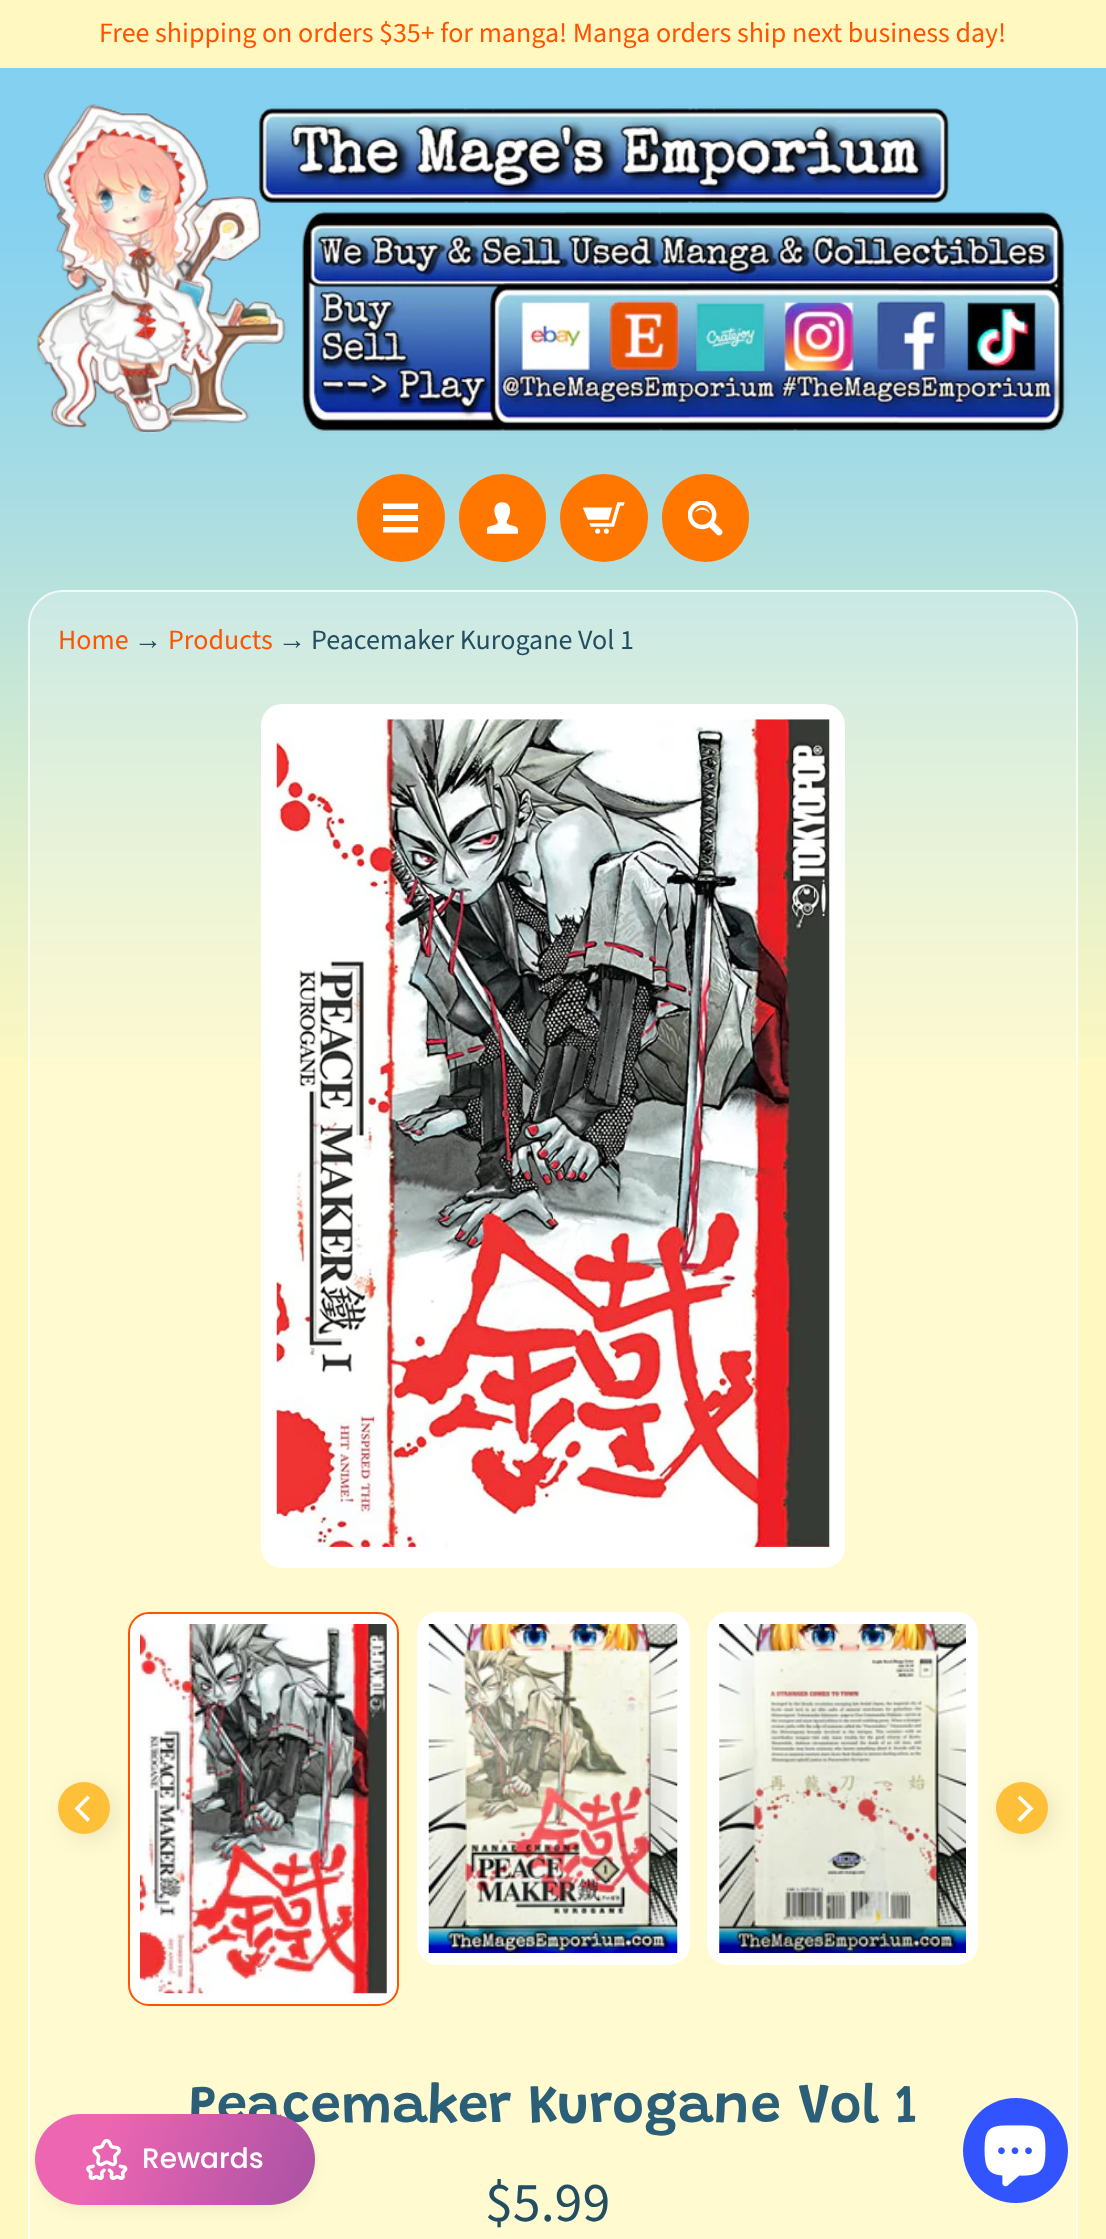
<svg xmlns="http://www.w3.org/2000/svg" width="1106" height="2239">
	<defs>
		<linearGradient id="g1" gradientUnits="userSpaceOnUse" x1="36" y1="2110" x2="425" y2="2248"><stop offset="0.17" stop-color="#ED66B2" /><stop offset="1" stop-color="#86469C" /></linearGradient>
	</defs>
	<rect width="100%" height="100%" fill="#FFF9C1" />
	<image x="0" y="68" width="1106" height="990" href="assets/img1.png" />
	<text x="99" y="42" font-family="Source Sans Pro" font-size="28" fill="#FF5300">Free shipping on orders $35+ for manga! Manga orders ship next business day!</text>
	<image x="37" y="104" width="1031" height="330" href="assets/img2.png" />
	<circle cx="401" cy="518" r="41.5" fill="#FF7700" stroke="#FF7700" stroke-width="5" />
	<path d="M418 509H383V503.5H418ZM418 515H383V521H418ZM418 527H383V532.5H418Z" fill="#FFFFFF" />
	<rect x="461.5" y="476.5" width="82" height="83" rx="41" fill="#FF7700" stroke="#FF7700" stroke-width="5" />
	<image x="487" y="502" width="31" height="32" href="assets/img3.png" />
	<circle cx="604" cy="518" r="41.5" fill="#FF7700" stroke="#FF7700" stroke-width="5" />
	<image x="583" y="502" width="42" height="32" href="assets/img4.png" />
	<rect x="664.5" y="476.5" width="82" height="83" rx="41" fill="#FF7700" stroke="#FF7700" stroke-width="5" />
	<image x="688" y="501" width="35" height="35" href="assets/img5.png" />
	<rect x="28" y="590" width="1050" height="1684" rx="35" fill="#FFFFFF" fill-opacity="0.25" />
	<rect x="29" y="591" width="1048" height="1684" rx="34" fill="none" stroke="#FFFFFF" stroke-opacity="0.7" stroke-width="2" />
	<text x="58" y="649" font-family="Source Sans Pro" font-size="28" fill="#FF5300">Home</text>
	<text x="134" y="649" font-family="Liberation Sans" font-size="28" fill="#234D61">→</text>
	<text x="168" y="649" font-family="Source Sans Pro" font-size="28" fill="#FF5300">Products</text>
	<text x="278" y="649" font-family="Liberation Sans" font-size="28" fill="#234D61">→</text>
	<text x="311" y="649" font-family="Source Sans Pro" font-size="28" fill="#234D61">Peacemaker Kurogane Vol 1</text>
	<rect x="261" y="704" width="584" height="864" rx="21" fill="#FFFFFF" />
	<image x="276" y="719" width="554" height="828" href="assets/img6.png" />
	<rect x="129" y="1613" width="269" height="392" rx="20" fill="#FFFFFF" stroke="#FF5300" stroke-width="2" />
	<image x="140" y="1624" width="247" height="370" href="assets/img7.png" />
	<rect x="63" y="1787" width="53" height="52" rx="26" fill="#000000" fill-opacity="0.08" filter="blur(10.5px)" />
	<circle cx="84" cy="1808" r="26" fill="#FFC039" />
	<path d="M74.5 1808.5L87.5 1822L90 1819L79.5 1808.5L90 1798L87.5 1795.5Z" fill="#FFFEF6" />
	<rect x="418" y="1613" width="271" height="351" rx="20" fill="#FFFFFF" stroke="#FFFFFF" stroke-width="2" />
	<image x="428" y="1624" width="250" height="329" href="assets/img8.png" />
	<rect x="708" y="1613" width="269" height="351" rx="20" fill="#FFFFFF" stroke="#FFFFFF" stroke-width="2" />
	<image x="719" y="1624" width="247" height="329" href="assets/img9.png" />
	<rect x="1001" y="1787" width="53" height="52" rx="26" fill="#33322A" fill-opacity="0.1" filter="blur(10.5px)" />
	<circle cx="1022" cy="1808" r="26" fill="#FFC039" />
	<path d="M1033.5 1808.5L1020 1795.5L1017.5 1798L1028 1808.5L1017.5 1819L1020 1822Z" fill="#FFFEF6" />
	<text x="189" y="2122" font-family="Grandstander" font-size="54.75" font-weight="600" fill="#2B5F77">Peacemaker Kurogane Vol 1</text>
	<text x="485" y="2221" font-family="Source Sans Pro" font-size="56" fill="#234D61">$5.99</text>
	<circle cx="1015.5" cy="2150.5" r="52.5" fill="#3154FF" />
	<image x="984" y="2125" width="62" height="62" href="assets/img10.png" />
	<rect x="39" y="2125" width="273" height="84" rx="42" fill="#444444" fill-opacity="0.08" filter="blur(7px)" />
	<rect x="35" y="2114" width="280" height="91" rx="45.5" fill="url(#g1)" />
	<image x="86" y="2139" width="42" height="42" href="assets/img11.png" />
	<text x="142" y="2168" font-family="Poppins" font-size="28" font-weight="500" fill="#FFFFFF">Rewards</text>
</svg>
